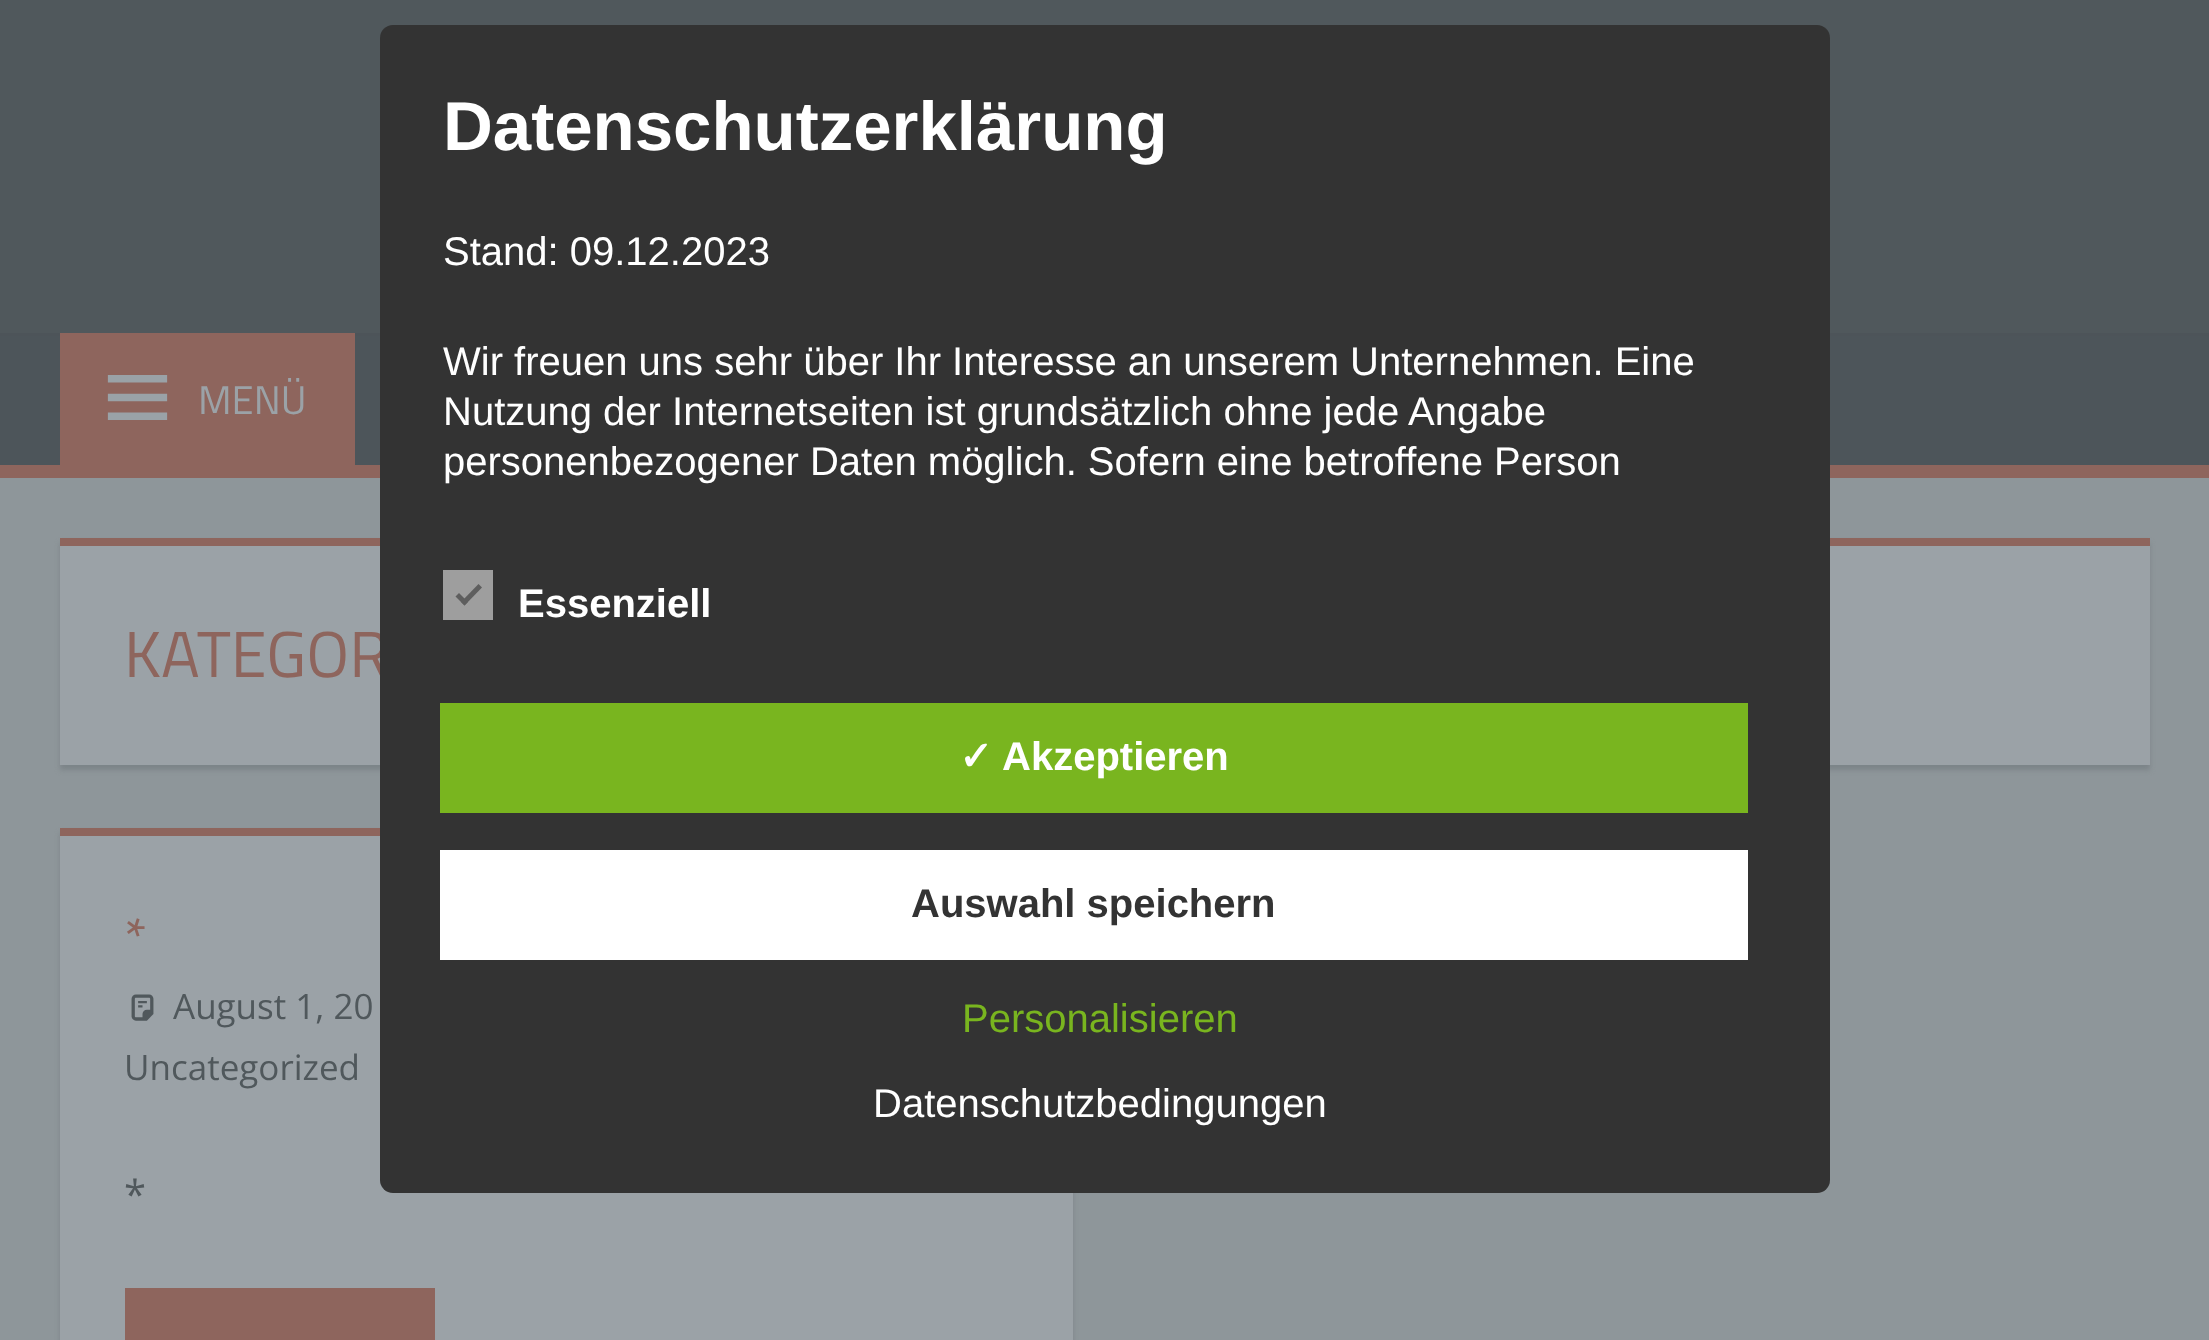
<svg xmlns="http://www.w3.org/2000/svg" width="2209" height="1340">
	<rect width="100%" height="100%" fill="#8E969A" />
	<rect x="0" y="0" width="2209" height="333" fill="#50585C" />
	<rect x="0" y="336" width="2209" height="129" fill="#4D555A" />
	<rect x="0" y="333" width="2209" height="3" fill="#4D5459" />
	<rect x="0" y="465" width="2209" height="13" fill="#8E655D" />
	<rect x="60" y="333" width="295" height="132" fill="#8E655D" />
	<image x="107" y="375" width="61" height="45" href="assets/img1.png" />
	<text x="198" y="414" font-family="Titillium Web" font-size="40" fill="#9BA2A7">MENÜ</text>
	<rect x="60" y="543" width="2090" height="227" fill="#7C8488" filter="blur(2.5px)" />
	<rect x="60" y="546" width="2090" height="219" fill="#9BA2A7" />
	<rect x="60" y="538" width="2090" height="8" fill="#8E655D" />
	<text x="124" y="677" font-family="Titillium Web" font-size="65" fill="#8E655D">KATEGOR</text>
	<rect x="60" y="833" width="1013" height="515" fill="#7C8488" filter="blur(2.5px)" />
	<rect x="60" y="836" width="1013" height="504" fill="#9BA2A7" />
	<rect x="60" y="828" width="320" height="8" fill="#8E655D" />
	<text x="124" y="957" font-family="Titillium Web" font-size="55" fill="#8E655D">*</text>
	<image x="131" y="994" width="23" height="27" href="assets/img2.png" />
	<g font-family="Open Sans" font-size="35" fill="#50585C">
		<text x="173" y="1019">August 1, 20</text>
		<text x="124" y="1080">Uncategorized</text>
	</g>
	<text x="124" y="1209" font-family="Open Sans" font-size="40" fill="#50585C">*</text>
	<rect x="125" y="1288" width="310" height="52" fill="#8E655D" />
	<rect x="380" y="25" width="1450" height="1168" rx="13" fill="#333333" />
	<text x="443" y="150" font-family="Liberation Sans" font-size="69" font-weight="700" fill="#FFFFFF">Datenschutzerklärung</text>
	<g font-family="Liberation Sans" font-size="40" fill="#FFFFFF">
		<text x="443" y="265">Stand: 09.12.2023</text>
		<text x="443" y="375">Wir freuen uns sehr über Ihr Interesse an unserem Unternehmen. Eine</text>
		<text x="443" y="425">Nutzung der Internetseiten ist grundsätzlich ohne jede Angabe</text>
		<text x="443" y="475">personenbezogener Daten möglich. Sofern eine betroffene Person</text>
	</g>
	<rect x="443" y="570" width="50" height="50" fill="#9E9E9E" />
	<path d="M478.5 584L482 587.5L464.5 605.5L461 602Z" fill="#5E5E5E" />
	<path d="M459 593L468 602L464.5 605.5L455.5 596.5Z" fill="#5E5E5E" />
	<text x="518" y="617" font-family="Liberation Sans" font-size="40" font-weight="700" fill="#FFFFFF">Essenziell</text>
	<rect x="440" y="703" width="1308" height="110" fill="#79B51F" />
	<text x="959" y="770" font-family="DejaVu Sans" font-size="40" font-weight="700" fill="#FFFFFF">✓</text>
	<text x="1002" y="770" font-family="Liberation Sans" font-size="40" font-weight="700" fill="#FFFFFF">Akzeptieren</text>
	<rect x="440" y="850" width="1308" height="110" fill="#FFFFFF" />
	<text x="911" y="917" font-family="Liberation Sans" font-size="40" font-weight="700" fill="#333333">Auswahl speichern</text>
	<text x="962" y="1032" font-family="Liberation Sans" font-size="40" fill="#79B51F">Personalisieren</text>
	<text x="873" y="1117" font-family="Liberation Sans" font-size="40" fill="#FFFFFF">Datenschutzbedingungen</text>
</svg>
